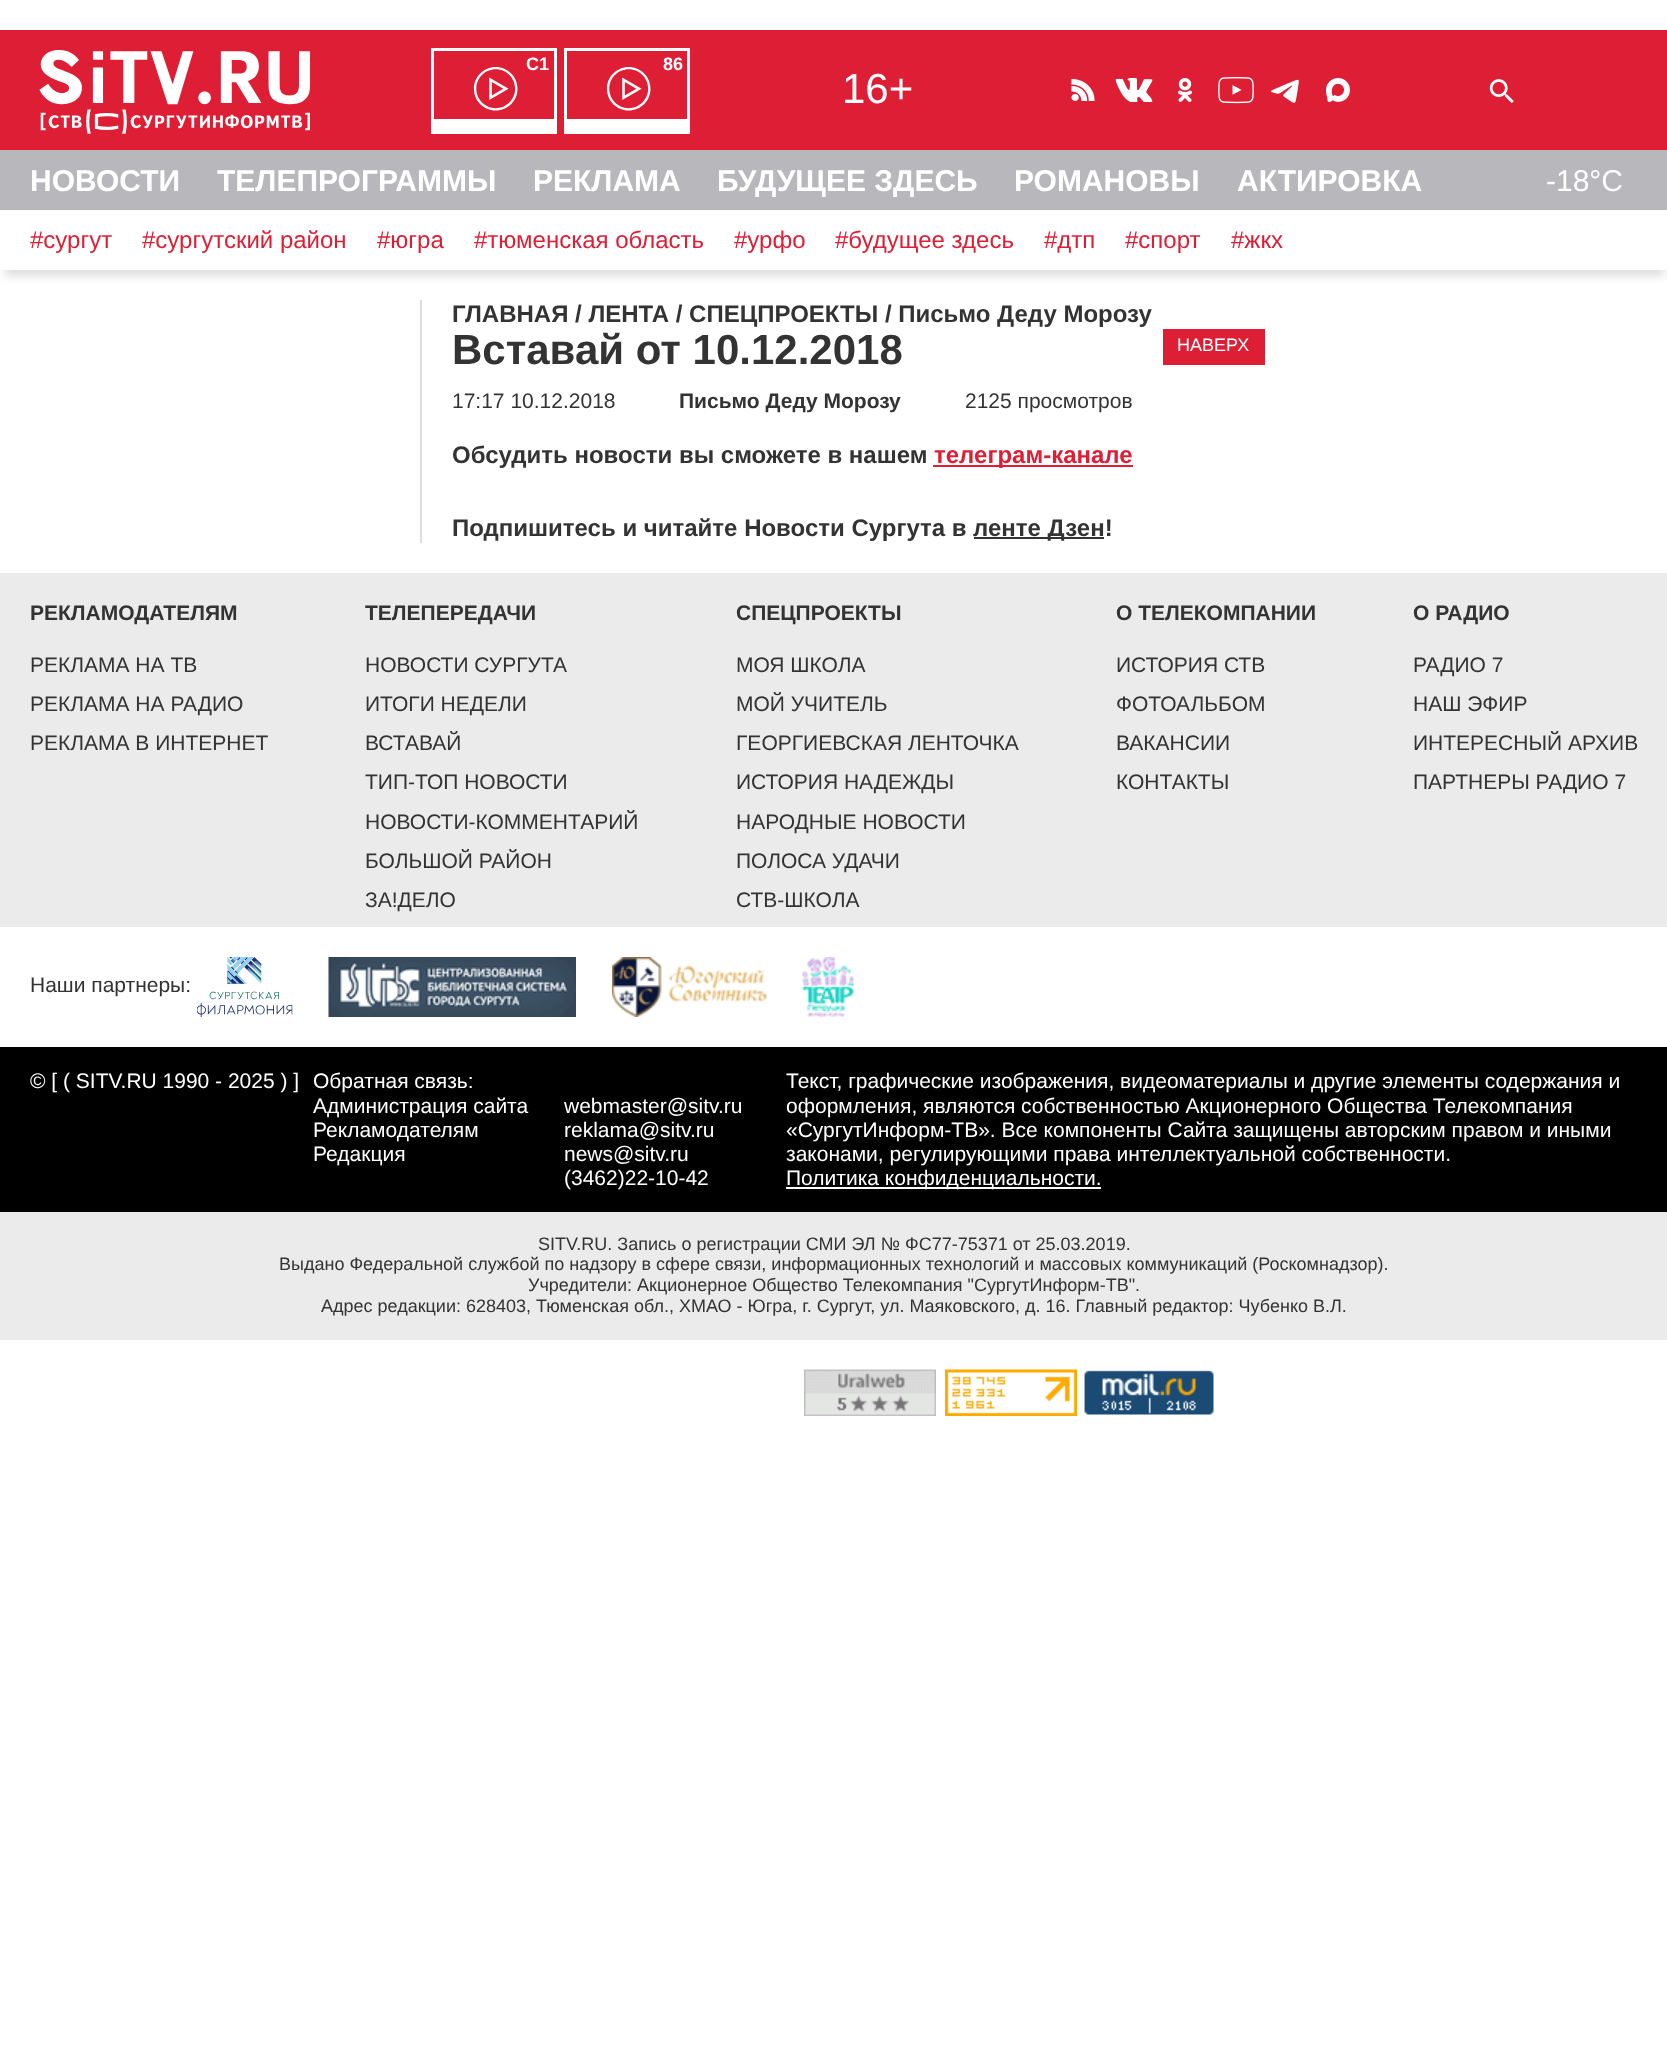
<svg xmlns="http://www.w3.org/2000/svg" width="1667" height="2046">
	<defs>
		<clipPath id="clip1"><rect x="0" y="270" width="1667" height="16" /></clipPath>
	</defs>
	<rect width="100%" height="100%" fill="#FFFFFF" />
	<rect x="0" y="30" width="1667" height="120" fill="#DE1E35" />
	<image x="39" y="50" width="272" height="84" href="assets/img1.png" />
	<image x="473" y="67" width="45" height="44" href="assets/img2.png" />
	<rect x="431" y="48" width="126" height="3" fill="#FFFFFF" />
	<rect x="554" y="48" width="3" height="71" fill="#FFFFFF" />
	<rect x="434" y="119" width="123" height="15" fill="#FFFFFF" />
	<rect x="431" y="48" width="3" height="86" fill="#FFFFFF" />
	<text x="526" y="70" font-family="Liberation Sans" font-size="18" font-weight="700" fill="#FFFFFF">С1</text>
	<image x="606" y="67" width="45" height="44" href="assets/img2.png" />
	<rect x="564" y="48" width="126" height="3" fill="#FFFFFF" />
	<rect x="687" y="48" width="3" height="71" fill="#FFFFFF" />
	<rect x="567" y="119" width="123" height="15" fill="#FFFFFF" />
	<rect x="564" y="48" width="3" height="86" fill="#FFFFFF" />
	<text x="663" y="70" font-family="Liberation Sans" font-size="18" font-weight="700" fill="#FFFFFF">86</text>
	<text x="842" y="103" font-family="Liberation Sans" font-size="42" fill="#FFFFFF">16+</text>
	<image x="1071" y="79" width="24" height="22" href="assets/img3.png" />
	<image x="1115" y="78" width="38" height="24" href="assets/img4.png" />
	<image x="1178" y="78" width="14" height="24" href="assets/img5.png" />
	<image x="1218" y="77" width="36" height="27" href="assets/img6.png" />
	<image x="1271" y="79" width="28" height="24" href="assets/img7.png" />
	<image x="1326" y="78" width="24" height="24" href="assets/img8.png" />
	<image x="1489" y="79" width="25" height="25" href="assets/img9.png" />
	<g clip-path="url(#clip1)">
		<rect x="5" y="225" width="1659" height="51" fill="#DDDDDD" filter="blur(5px)" />
	</g>
	<rect x="0" y="150" width="1667" height="60" fill="#B8B7BC" />
	<g font-family="Liberation Sans" font-size="30" font-weight="700" fill="#FFFFFF">
		<text x="30" y="191">НОВОСТИ</text>
		<text x="217" y="191">ТЕЛЕПРОГРАММЫ</text>
		<text x="533" y="191">РЕКЛАМА</text>
		<text x="717" y="191">БУДУЩЕЕ ЗДЕСЬ</text>
		<text x="1014" y="191">РОМАНОВЫ</text>
		<text x="1237" y="191">АКТИРОВКА</text>
	</g>
	<text x="1546" y="191" font-family="Liberation Sans" font-size="30" fill="#FFFFFF">-18°C</text>
	<g font-family="Liberation Sans" font-size="24" fill="#DE1E35">
		<text x="30" y="248">#сургут</text>
		<text x="142" y="248">#сургутский район</text>
		<text x="377" y="248">#югра</text>
		<text x="474" y="248">#тюменская область</text>
		<text x="734" y="248">#урфо</text>
		<text x="835" y="248">#будущее здесь</text>
		<text x="1044" y="248">#дтп</text>
		<text x="1125" y="248">#спорт</text>
		<text x="1231" y="248">#жкх</text>
	</g>
	<rect x="420" y="300" width="2" height="243" fill="#DDDDDD" />
	<text x="452" y="322" font-family="Liberation Sans" font-size="24" font-weight="700" fill="#333333">ГЛАВНАЯ / ЛЕНТА / СПЕЦПРОЕКТЫ / Письмо Деду Морозу</text>
	<text x="452" y="364" font-family="Liberation Sans" font-size="42" font-weight="700" fill="#333333">Вставай от 10.12.2018</text>
	<text x="452" y="408" font-family="Liberation Sans" font-size="21" fill="#333333">17:17 10.12.2018</text>
	<text x="679" y="408" font-family="Liberation Sans" font-size="21" font-weight="700" fill="#333333">Письмо Деду Морозу</text>
	<text x="965" y="408" font-family="Liberation Sans" font-size="21" fill="#333333">2125 просмотров</text>
	<text x="452" y="463" font-family="Liberation Sans" font-size="24" font-weight="700" fill="#333333">Обсудить новости вы сможете в нашем</text>
	<rect x="933" y="465" width="200" height="2" fill="#DE1E35" />
	<text x="934" y="463" font-family="Liberation Sans" font-size="24" font-weight="700" fill="#DE1E35">телеграм-канале</text>
	<text x="452" y="536" font-family="Liberation Sans" font-size="24" font-weight="700" fill="#333333">Подпишитесь и читайте Новости Сургута в</text>
	<rect x="974" y="537" width="130" height="2" fill="#333333" />
	<text x="973" y="536" font-family="Liberation Sans" font-size="24" font-weight="700" fill="#333333">ленте Дзен!</text>
	<rect x="1163" y="329" width="102" height="36" fill="#DE1E35" />
	<text x="1177" y="351" font-family="Liberation Sans" font-size="18" fill="#FFFFFF">НАВЕРХ</text>
	<rect x="0" y="573" width="1667" height="354" fill="#EBEBEB" />
	<text x="30" y="620" font-family="Liberation Sans" font-size="21" font-weight="700" fill="#333333">РЕКЛАМОДАТЕЛЯМ</text>
	<g font-family="Liberation Sans" font-size="21" fill="#333333">
		<text x="30" y="672">РЕКЛАМА НА ТВ</text>
		<text x="30" y="711">РЕКЛАМА НА РАДИО</text>
		<text x="30" y="750">РЕКЛАМА В ИНТЕРНЕТ</text>
	</g>
	<text x="365" y="620" font-family="Liberation Sans" font-size="21" font-weight="700" fill="#333333">ТЕЛЕПЕРЕДАЧИ</text>
	<g font-family="Liberation Sans" font-size="21" fill="#333333">
		<text x="365" y="672">НОВОСТИ СУРГУТА</text>
		<text x="365" y="711">ИТОГИ НЕДЕЛИ</text>
		<text x="365" y="750">ВСТАВАЙ</text>
		<text x="365" y="789">ТИП-ТОП НОВОСТИ</text>
		<text x="365" y="829">НОВОСТИ-КОММЕНТАРИЙ</text>
		<text x="365" y="868">БОЛЬШОЙ РАЙОН</text>
		<text x="365" y="907">ЗА!ДЕЛО</text>
	</g>
	<text x="736" y="620" font-family="Liberation Sans" font-size="21" font-weight="700" fill="#333333">СПЕЦПРОЕКТЫ</text>
	<g font-family="Liberation Sans" font-size="21" fill="#333333">
		<text x="736" y="672">МОЯ ШКОЛА</text>
		<text x="736" y="711">МОЙ УЧИТЕЛЬ</text>
		<text x="736" y="750">ГЕОРГИЕВСКАЯ ЛЕНТОЧКА</text>
		<text x="736" y="789">ИСТОРИЯ НАДЕЖДЫ</text>
		<text x="736" y="829">НАРОДНЫЕ НОВОСТИ</text>
		<text x="736" y="868">ПОЛОСА УДАЧИ</text>
		<text x="736" y="907">СТВ-ШКОЛА</text>
	</g>
	<text x="1116" y="620" font-family="Liberation Sans" font-size="21" font-weight="700" fill="#333333">О ТЕЛЕКОМПАНИИ</text>
	<g font-family="Liberation Sans" font-size="21" fill="#333333">
		<text x="1116" y="672">ИСТОРИЯ СТВ</text>
		<text x="1116" y="711">ФОТОАЛЬБОМ</text>
		<text x="1116" y="750">ВАКАНСИИ</text>
		<text x="1116" y="789">КОНТАКТЫ</text>
	</g>
	<text x="1413" y="620" font-family="Liberation Sans" font-size="21" font-weight="700" fill="#333333">О РАДИО</text>
	<g font-family="Liberation Sans" font-size="21" fill="#333333">
		<text x="1413" y="672">РАДИО 7</text>
		<text x="1413" y="711">НАШ ЭФИР</text>
		<text x="1413" y="750">ИНТЕРЕСНЫЙ АРХИВ</text>
		<text x="1413" y="789">ПАРТНЕРЫ РАДИО 7</text>
		<text x="30" y="992">Наши партнеры:</text>
	</g>
	<image x="197" y="957" width="96" height="60" href="assets/img10.png" />
	<image x="328" y="957" width="248" height="60" href="assets/img11.png" />
	<image x="612" y="957" width="155" height="60" href="assets/img12.png" />
	<image x="802" y="957" width="52" height="60" href="assets/img13.png" />
	<rect x="0" y="1047" width="1667" height="165" fill="#000000" />
	<g font-family="Liberation Sans" font-size="21" fill="#FFFFFF">
		<text x="30" y="1088">© [ ( SITV.RU 1990 - 2025 ) ]</text>
		<text x="313" y="1088">Обратная связь:</text>
		<text x="313" y="1113">Администрация сайта</text>
		<text x="313" y="1137">Рекламодателям</text>
		<text x="313" y="1161">Редакция</text>
		<text x="564" y="1113">webmaster@sitv.ru</text>
		<text x="564" y="1137">reklama@sitv.ru</text>
		<text x="564" y="1161">news@sitv.ru</text>
		<text x="564" y="1185">(3462)22-10-42</text>
		<text x="786" y="1088">Текст, графические изображения, видеоматериалы и другие элементы содержания и</text>
		<text x="786" y="1113">оформления, являются собственностью Акционерного Общества Телекомпания</text>
		<text x="786" y="1137">«СургутИнформ-ТВ». Все компоненты Сайта защищены авторским правом и иными</text>
		<text x="786" y="1161">законами, регулирующими права интеллектуальной собственности.</text>
	</g>
	<rect x="786" y="1187" width="315" height="2" fill="#FFFFFF" />
	<text x="786" y="1185" font-family="Liberation Sans" font-size="21" fill="#FFFFFF">Политика конфиденциальности.</text>
	<rect x="0" y="1212" width="1667" height="128" fill="#EBEBEB" />
	<g font-family="Liberation Sans" font-size="18" fill="#333333">
		<text x="538" y="1250">SITV.RU. Запись о регистрации СМИ ЭЛ № ФС77-75371 от 25.03.2019.</text>
		<text x="279" y="1270">Выдано Федеральной службой по надзору в сфере связи, информационных технологий и массовых коммуникаций (Роскомнадзор).</text>
		<text x="528" y="1291">Учредители: Акционерное Общество Телекомпания "СургутИнформ-ТВ".</text>
		<text x="321" y="1312">Адрес редакции: 628403, Тюменская обл., ХМАО - Югра, г. Сургут, ул. Маяковского, д. 16. Главный редактор: Чубенко В.Л.</text>
	</g>
	<image x="804" y="1369" width="132" height="47" href="assets/img14.png" />
	<image x="945" y="1369" width="132" height="47" href="assets/img15.png" />
	<image x="1084" y="1370" width="130" height="45" href="assets/img16.png" />
</svg>
